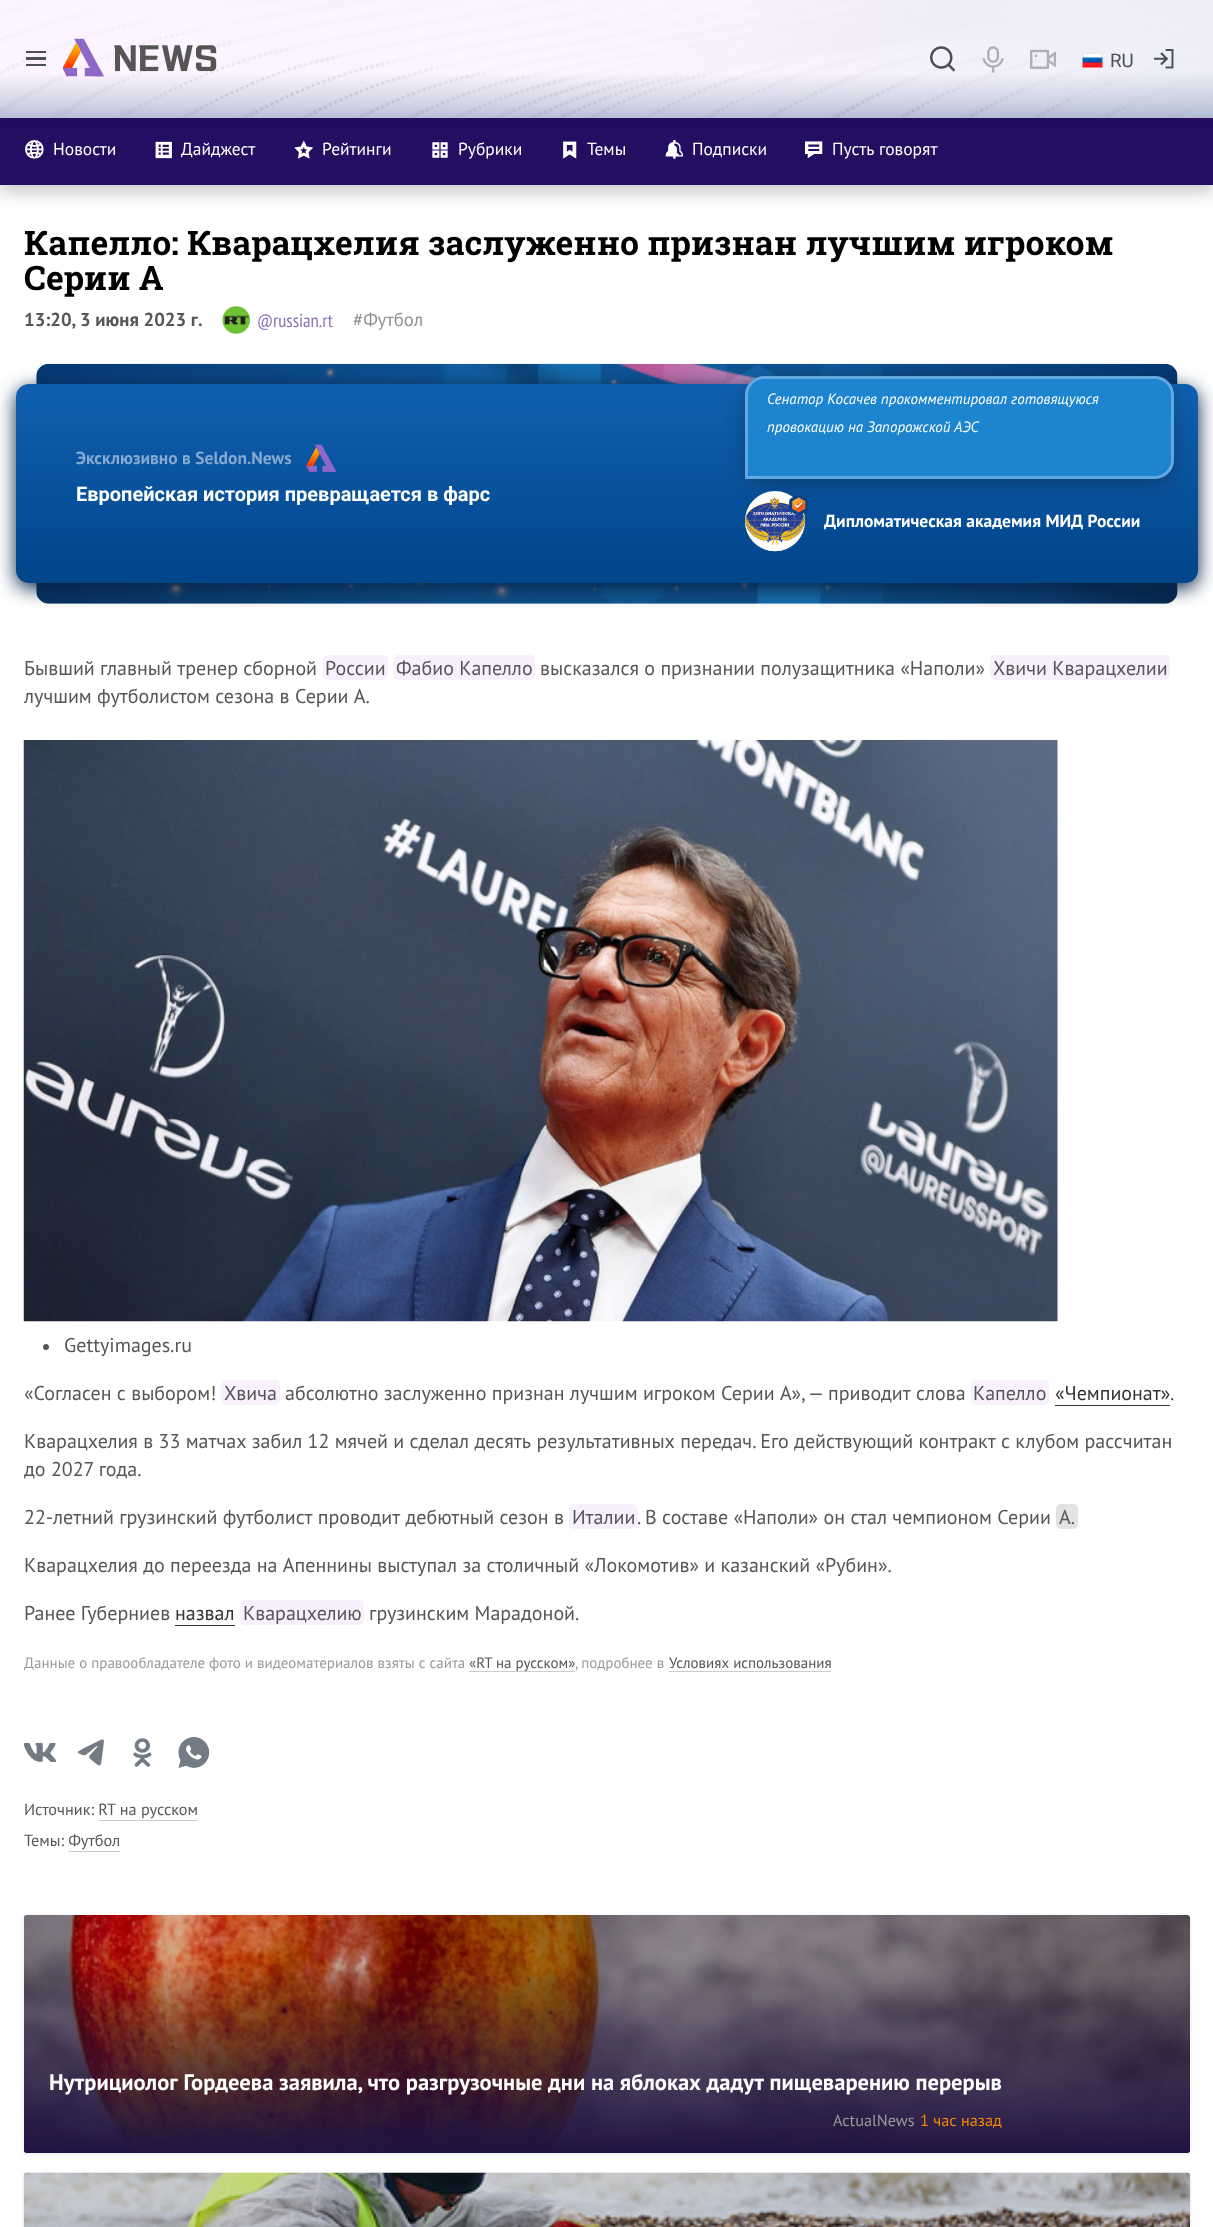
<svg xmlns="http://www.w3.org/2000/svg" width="1213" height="2227">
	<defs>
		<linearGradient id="g1" gradientUnits="userSpaceOnUse" x1="684" y1="59" x2="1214" y2="59"><stop offset="0" stop-color="#E9ECF4" stop-opacity="0" /><stop offset="1" stop-color="#E9ECF4" stop-opacity="0.8" /></linearGradient>
		<linearGradient id="g2" gradientUnits="userSpaceOnUse" x1="607" y1="72" x2="607" y2="118"><stop offset="0" stop-color="#3B5A8D" stop-opacity="0" /><stop offset="0.66" stop-color="#3B5A8D" stop-opacity="0.2" /><stop offset="1" stop-color="#2E4F86" stop-opacity="0.33" /></linearGradient>
		<linearGradient id="g3" gradientUnits="userSpaceOnUse" x1="36" y1="51" x2="36" y2="70"><stop offset="0" stop-color="#4B4F55" /><stop offset="0.13" stop-color="#4B4F55" /><stop offset="0.13" stop-color="#4B4F55" stop-opacity="0" /><stop offset="0.33" stop-color="#4B4F55" stop-opacity="0" /><stop offset="0.33" stop-color="#4B4F55" /><stop offset="0.47" stop-color="#4B4F55" /><stop offset="0.47" stop-color="#4B4F55" stop-opacity="0" /><stop offset="0.67" stop-color="#4B4F55" stop-opacity="0" /><stop offset="0.67" stop-color="#4B4F55" /><stop offset="0.8" stop-color="#4B4F55" /><stop offset="0.8" stop-color="#4B4F55" stop-opacity="0" /><stop offset="1" stop-color="#000000" stop-opacity="0" /></linearGradient>
		<linearGradient id="g4" gradientUnits="userSpaceOnUse" x1="607" y1="384" x2="607" y2="583"><stop offset="0" stop-color="#1060B0" /><stop offset="1" stop-color="#01458A" /></linearGradient>
		<linearGradient id="g5" gradientUnits="userSpaceOnUse" x1="607" y1="2153" x2="607" y2="1963"><stop offset="0" stop-color="#211341" /><stop offset="1" stop-color="#211341" stop-opacity="0" /></linearGradient>
	</defs>
	<rect width="100%" height="100%" fill="#FFFFFF" />
	<rect x="0" y="125" width="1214" height="68" fill="#000000" fill-opacity="0.2" filter="blur(8px)" />
	<rect x="0" y="118" width="1213" height="67" fill="#240E62" />
	<rect x="0" y="3" width="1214" height="117" fill="#000000" fill-opacity="0.1" filter="blur(5px)" />
	<rect x="0" y="0" width="1213" height="118" fill="#FCF5FF" />
	<image x="0" y="0" width="1213" height="118" href="assets/img1.png" />
	<rect x="750" y="0" width="463" height="118" fill="url(#g1)" />
	<rect x="0" y="75" width="1213" height="43" fill="url(#g2)" />
	<rect x="26" y="51" width="20" height="15" fill="url(#g3)" />
	<image x="63" y="38" width="154" height="39" href="assets/img2.png" />
	<image x="930" y="46" width="26" height="26" href="assets/img3.png" />
	<image x="982" y="46" width="22" height="27" href="assets/img4.png" />
	<image x="1030" y="49" width="26" height="20" href="assets/img5.png" />
	<image x="1082" y="52" width="21" height="16" href="assets/img6.png" />
	<text x="1110" y="67" font-family="Roboto" font-size="18.75" fill="#4B4F55">RU</text>
	<image x="1154" y="49" width="20" height="20" href="assets/img7.png" />
	<image x="25" y="140" width="19" height="19" href="assets/img8.png" />
	<text x="53" y="155" font-family="PT Sans" font-size="17.5" fill="#FFFFFF">Новости</text>
	<image x="155" y="141" width="17" height="18" href="assets/img9.png" />
	<text x="181" y="155" font-family="PT Sans" font-size="17.5" fill="#FFFFFF">Дайджест</text>
	<image x="294" y="140" width="19" height="19" href="assets/img10.png" />
	<text x="322" y="155" font-family="PT Sans" font-size="17.5" fill="#FFFFFF">Рейтинги</text>
	<image x="432" y="142" width="16" height="16" href="assets/img11.png" />
	<text x="458" y="155" font-family="PT Sans" font-size="17.5" fill="#FFFFFF">Рубрики</text>
	<image x="563" y="141" width="14" height="18" href="assets/img12.png" />
	<text x="587" y="155" font-family="PT Sans" font-size="17.5" fill="#FFFFFF">Темы</text>
	<image x="665" y="140" width="19" height="19" href="assets/img13.png" />
	<text x="692" y="155" font-family="PT Sans" font-size="17.5" fill="#FFFFFF">Подписки</text>
	<image x="805" y="141" width="18" height="18" href="assets/img14.png" />
	<text x="832" y="155" font-family="PT Sans" font-size="17.5" fill="#FFFFFF">Пусть говорят</text>
	<g font-family="Roboto Slab" font-size="33.75" font-weight="700" fill="#000000">
		<text x="24" y="255">Капелло: Кварацхелия заслуженно признан лучшим игроком</text>
		<text x="24" y="290">Серии А</text>
	</g>
	<g font-family="PT Sans" font-size="18.75" font-weight="700" fill="#565656">
		<text x="24" y="326">13:20,</text>
		<text x="80" y="326">3 июня 2023 г.</text>
	</g>
	<image x="222" y="306" width="28" height="28" href="assets/img15.png" />
	<text x="257" y="327" font-family="PT Sans Narrow" font-size="18.75" fill="#8B72B5">@russian.rt</text>
	<text x="353" y="326" font-family="PT Sans" font-size="18.75" fill="#919191">#Футбол</text>
	<image x="36" y="363" width="1142" height="241" href="assets/img16.png" />
	<rect x="16" y="389" width="1182" height="199" rx="13" fill="#072348" filter="blur(9.5px)" />
	<rect x="16" y="384" width="1182" height="199" rx="13" fill="url(#g4)" />
	<text x="76" y="464" font-family="PT Sans" font-size="17.5" font-weight="700" fill="#85AAD0">Эксклюзивно в Seldon.News</text>
	<image x="306" y="444" width="30" height="28" href="assets/img17.png" />
	<text x="76" y="501" font-family="Roboto" font-size="20" font-weight="700" fill="#FFFFFF">Европейская история превращается в фарс</text>
	<rect x="745" y="381" width="429" height="103" rx="19" fill="#142033" fill-opacity="0.4" filter="blur(9.5px)" />
	<path d="M764 376H1155C1165.5 376 1174 384.5 1174 395V460C1174 470.5 1165.5 479 1155 479H745V395C745 384.5 753.5 376 764 376Z" fill="#1D85D0" />
	<path d="M764 377.5H1155C1164.5 377.5 1172.5 385.5 1172.5 395V460C1172.5 469.5 1164.5 477.5 1155 477.5H746.5V395C746.5 385.5 754.5 377.5 764 377.5Z" fill="none" stroke="#FFFFFF" stroke-opacity="0.3" stroke-width="3" />
	<g font-family="PT Sans" font-size="15" font-style="italic" fill="#FFFFFF">
		<text x="767" y="404">Сенатор Косачев прокомментировал готовящуюся</text>
		<text x="767" y="432">провокацию на Запорожской АЭС</text>
	</g>
	<circle cx="775" cy="521" r="30" fill="#AAAAAA" />
	<image x="744" y="491" width="62" height="61" href="assets/img18.png" />
	<image x="789" y="495" width="20" height="20" href="assets/img19.png" />
	<text x="824" y="527" font-family="PT Sans" font-size="17.5" font-weight="700" fill="#FFFFFF">Дипломатическая академия МИД России</text>
	<text x="24" y="675" font-family="PT Sans" font-size="20" fill="#565656">Бывший главный тренер сборной</text>
	<rect x="323" y="655" width="65" height="25" rx="5" fill="#F8F0FD" />
	<text x="325" y="675" font-family="PT Sans" font-size="20" fill="#565656">России</text>
	<rect x="393" y="655" width="142" height="25" rx="5" fill="#F8F0FD" />
	<g font-family="PT Sans" font-size="20" fill="#565656">
		<text x="396" y="675">Фабио Капелло</text>
		<text x="540" y="675">высказался о признании полузащитника «Наполи»</text>
	</g>
	<rect x="990" y="655" width="180" height="25" rx="5" fill="#F8F0FD" />
	<g font-family="PT Sans" font-size="20" fill="#565656">
		<text x="993" y="675">Хвичи Кварацхелии</text>
		<text x="24" y="703">лучшим футболистом сезона в Серии А.</text>
	</g>
	<image x="23" y="740" width="1035" height="582" href="assets/img20.png" />
	<circle cx="46" cy="1347" r="3" fill="#565656" />
	<g font-family="PT Sans" font-size="20" fill="#565656">
		<text x="64" y="1352">Gettyimages.ru</text>
		<text x="24" y="1400">«Согласен с выбором!</text>
	</g>
	<rect x="221" y="1380" width="59" height="25" rx="5" fill="#F8F0FD" />
	<g font-family="PT Sans" font-size="20" fill="#565656">
		<text x="224" y="1400">Хвича</text>
		<text x="285" y="1400">абсолютно заслуженно признан лучшим игроком Серии А», — приводит слова</text>
	</g>
	<rect x="971" y="1380" width="78" height="25" rx="5" fill="#F8F0FD" />
	<text x="973" y="1400" font-family="PT Sans" font-size="20" fill="#565656">Капелло</text>
	<text x="1055" y="1400" font-family="PT Sans" font-size="20" fill="#333333">«Чемпионат»</text>
	<rect x="1055" y="1405" width="115" height="1" fill="#333333" />
	<g font-family="PT Sans" font-size="20" fill="#565656">
		<text x="1170" y="1400">.</text>
		<text x="24" y="1448">Кварацхелия в 33 матчах забил 12 мячей и сделал десять результативных передач. Его действующий контракт с клубом рассчитан</text>
		<text x="24" y="1476">до 2027 года.</text>
		<text x="24" y="1524">22-летний грузинский футболист проводит дебютный сезон в</text>
	</g>
	<rect x="569" y="1504" width="69" height="25" rx="5" fill="#F8F0FD" />
	<g font-family="PT Sans" font-size="20" fill="#565656">
		<text x="572" y="1524">Италии</text>
		<text x="637" y="1524">. В составе «Наполи» он стал чемпионом Серии</text>
	</g>
	<rect x="1056" y="1504" width="22" height="25" rx="5" fill="#E3E3E3" />
	<g font-family="PT Sans" font-size="20" fill="#565656">
		<text x="1059" y="1524">А.</text>
		<text x="24" y="1572">Кварацхелия до переезда на Апеннины выступал за столичный «Локомотив» и казанский «Рубин».</text>
		<text x="24" y="1620">Ранее Губерниев</text>
	</g>
	<text x="175" y="1620" font-family="PT Sans" font-size="20" fill="#333333">назвал</text>
	<rect x="175" y="1625" width="60" height="1" fill="#333333" />
	<rect x="240" y="1600" width="124" height="25" rx="5" fill="#F8F0FD" />
	<g font-family="PT Sans" font-size="20" fill="#565656">
		<text x="243" y="1620">Кварацхелию</text>
		<text x="369" y="1620">грузинским Марадоной.</text>
	</g>
	<text x="24" y="1668" font-family="PT Sans" font-size="15" fill="#999999">Данные о правообладателе фото и видеоматериалов взяты с сайта</text>
	<rect x="469" y="1671" width="106" height="1" fill="#CCCCCC" />
	<text x="469" y="1668" font-family="PT Sans" font-size="15" fill="#565656">«RT на русском»</text>
	<text x="575" y="1668" font-family="PT Sans" font-size="15" fill="#999999">, подробнее в</text>
	<text x="669" y="1668" font-family="PT Sans" font-size="15" fill="#565656">Условиях использования</text>
	<rect x="669" y="1671" width="162" height="1" fill="#CCCCCC" />
	<image x="23" y="1743" width="34" height="19" href="assets/img21.png" />
	<image x="77" y="1739" width="27" height="27" href="assets/img22.png" />
	<image x="133" y="1738" width="19" height="29" href="assets/img23.png" />
	<image x="178" y="1737" width="32" height="31" href="assets/img24.png" />
	<text x="24" y="1815" font-family="PT Sans" font-size="16.25" fill="#565656">Источник: RT на русском</text>
	<rect x="99" y="1820" width="99" height="1" fill="#CCCCCC" />
	<text x="24" y="1846" font-family="PT Sans" font-size="16.25" fill="#565656">Темы: Футбол</text>
	<rect x="68" y="1851" width="52" height="1" fill="#CCCCCC" />
	<rect x="24" y="1916" width="1166" height="238" rx="2.5" fill="#000000" fill-opacity="0.1" filter="blur(2px)" />
	<image x="24" y="1915" width="1166" height="238" href="assets/img25.png" />
	<path d="M24 1963H1190V2150.5C1190 2152 1189 2153 1187.5 2153H26.5C25 2153 24 2152 24 2150.5Z" fill="url(#g5)" />
	<text x="49" y="2090" font-family="PT Sans" font-size="22.5" font-weight="700" fill="#FFFFFF">Нутрициолог Гордеева заявила, что разгрузочные дни на яблоках дадут пищеварению перерыв</text>
	<text x="833" y="2126" font-family="PT Sans" font-size="16.25" fill="#999999">ActualNews</text>
	<text x="920" y="2126" font-family="PT Sans" font-size="16.25" fill="#F48804">1 час назад</text>
	<rect x="24" y="2174" width="1166" height="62" rx="2.5" fill="#000000" fill-opacity="0.1" filter="blur(2px)" />
	<image x="23" y="2172" width="1167" height="55" href="assets/img26.png" />
</svg>
